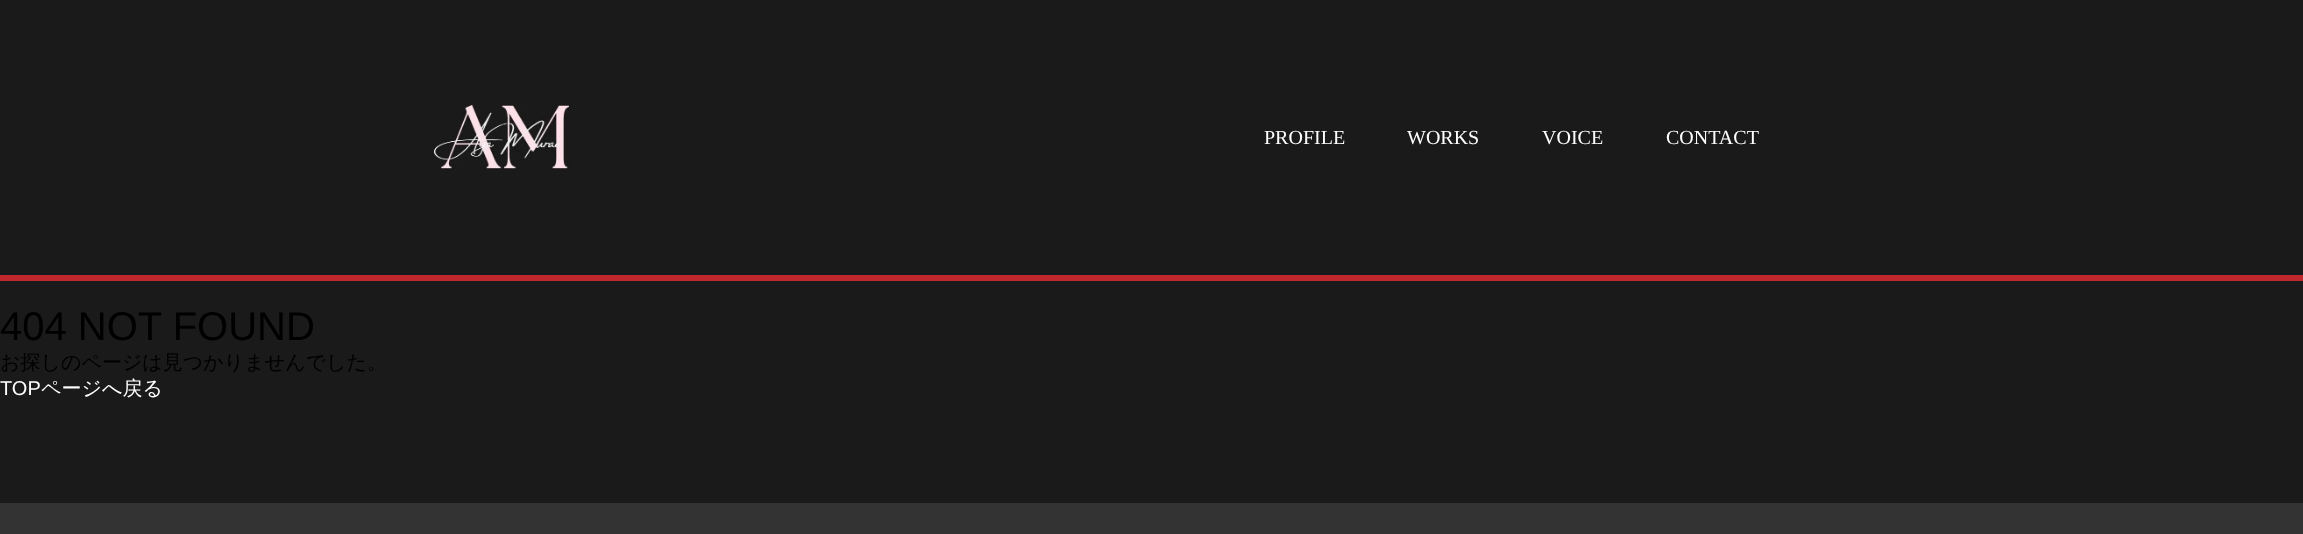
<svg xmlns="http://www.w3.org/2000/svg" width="2303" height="534">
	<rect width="100%" height="100%" fill="#1A1A1A" />
	<rect x="0" y="275" width="2303" height="6" fill="#C1282D" />
	<image x="434" y="104" width="136" height="66" href="assets/img1.png" />
	<g font-family="Liberation Serif" font-size="20" fill="#FFFFFF">
		<text x="1264" y="144">PROFILE</text>
		<text x="1407" y="144">WORKS</text>
		<text x="1542" y="144">VOICE</text>
		<text x="1666" y="144">CONTACT</text>
	</g>
	<text x="0" y="340" font-family="Liberation Sans" font-size="40" fill="#000000">404 NOT FOUND</text>
	<text x="0" y="369" font-family="WenQuanYi Zen Hei" font-size="20" font-weight="500" fill="#000000">お探しのページは見つかりませんでした。</text>
	<text x="0" y="395" font-family="Liberation Sans" font-size="20" fill="#FFFFFF">TOP</text>
	<text x="41" y="395" font-family="WenQuanYi Zen Hei" font-size="20" font-weight="500" fill="#FFFFFF">ページへ戻る</text>
	<rect x="0" y="503" width="2303" height="31" fill="#333333" />
</svg>
